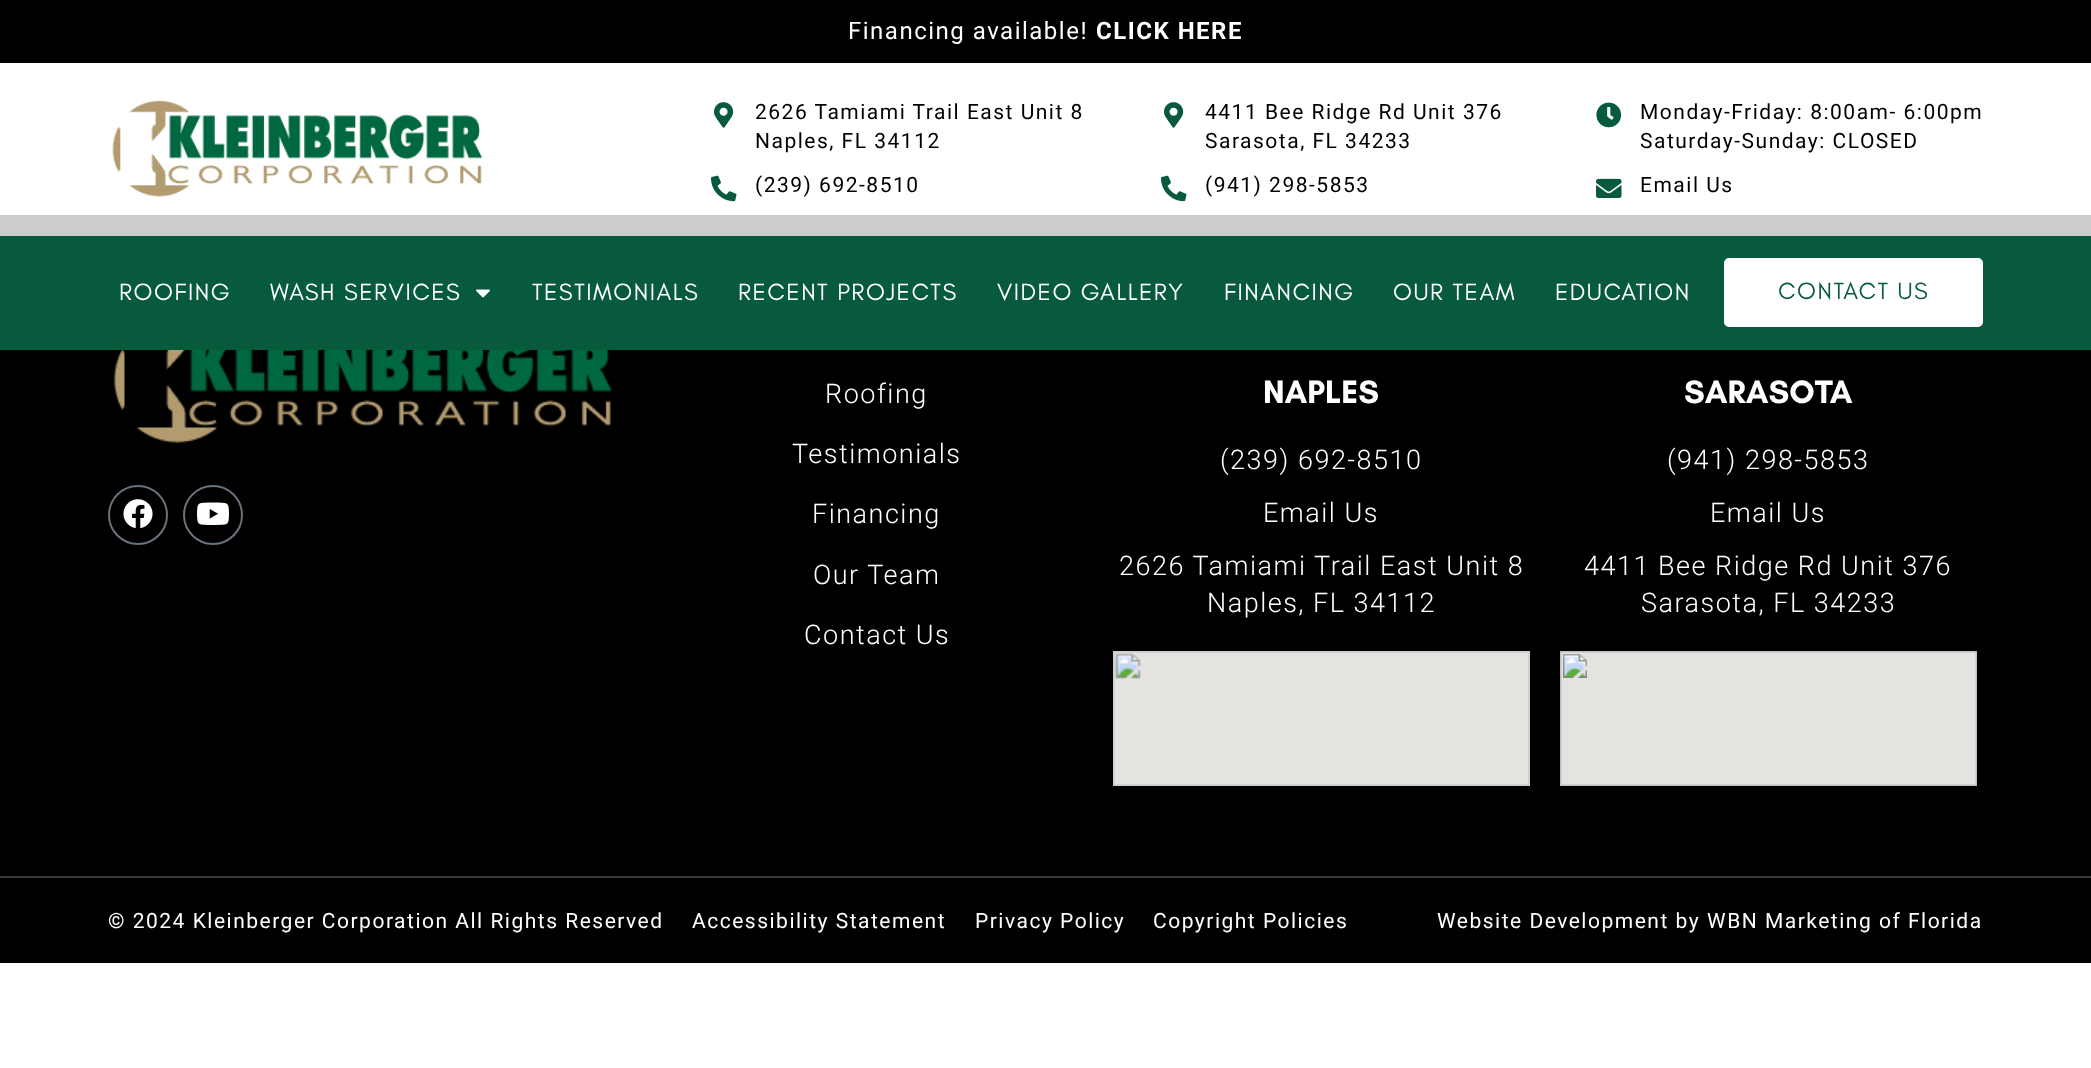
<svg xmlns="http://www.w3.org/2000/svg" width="2091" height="1068">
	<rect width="100%" height="100%" fill="#FFFFFF" />
	<rect x="0" y="0" width="2091" height="63" fill="#000000" />
	<text x="848" y="39" font-family="Roboto" font-size="24" letter-spacing="1.5" fill="#FFFFFF">Financing available!</text>
	<text x="1096" y="39" font-family="Roboto" font-size="24" font-weight="700" letter-spacing="1.5" fill="#FFFFFF">CLICK HERE</text>
	<rect x="0" y="215" width="2091" height="661" fill="#000000" />
	<rect x="0" y="215" width="2091" height="21" fill="#FFFFFF" fill-opacity="0.8" />
	<image x="112" y="100" width="371" height="97" href="assets/img1.png" />
	<image x="714" y="102" width="20" height="26" href="assets/img2.png" />
	<g font-family="Roboto" font-size="21" letter-spacing="1.5" fill="#000000">
		<text x="755" y="119">2626 Tamiami Trail East Unit 8</text>
		<text x="755" y="148">Naples, FL 34112</text>
	</g>
	<image x="711" y="175" width="26" height="27" href="assets/img3.png" />
	<text x="755" y="192" font-family="Roboto" font-size="21" letter-spacing="1.5" fill="#000000">(239) 692-8510</text>
	<image x="1164" y="102" width="20" height="26" href="assets/img4.png" />
	<g font-family="Roboto" font-size="21" letter-spacing="1.5" fill="#000000">
		<text x="1205" y="119">4411 Bee Ridge Rd Unit 376</text>
		<text x="1205" y="148">Sarasota, FL 34233</text>
	</g>
	<image x="1161" y="175" width="26" height="27" href="assets/img3.png" />
	<text x="1205" y="192" font-family="Roboto" font-size="21" letter-spacing="1.5" fill="#000000">(941) 298-5853</text>
	<image x="1596" y="102" width="26" height="26" href="assets/img5.png" />
	<g font-family="Roboto" font-size="21" letter-spacing="1.5" fill="#000000">
		<text x="1640" y="119">Monday-Friday: 8:00am- 6:00pm</text>
		<text x="1640" y="148">Saturday-Sunday: CLOSED</text>
	</g>
	<image x="1596" y="178" width="26" height="20" href="assets/img6.png" />
	<text x="1640" y="192" font-family="Roboto" font-size="21" letter-spacing="1.5" fill="#000000">Email Us</text>
	<rect x="0" y="236" width="2091" height="114" fill="#085A3D" />
	<g font-family="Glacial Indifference" font-size="24" letter-spacing="1.5" fill="#FFFFFF">
		<text x="119" y="300">ROOFING</text>
		<text x="270" y="300">WASH SERVICES</text>
	</g>
	<image x="476" y="289" width="14" height="9" href="assets/img7.png" />
	<g font-family="Glacial Indifference" font-size="24" letter-spacing="1.5" fill="#FFFFFF">
		<text x="532" y="300">TESTIMONIALS</text>
		<text x="738" y="300">RECENT PROJECTS</text>
		<text x="997" y="300">VIDEO GALLERY</text>
		<text x="1224" y="300">FINANCING</text>
		<text x="1393" y="300">OUR TEAM</text>
		<text x="1555" y="300">EDUCATION</text>
	</g>
	<rect x="1725" y="259" width="257" height="67" rx="4" fill="#FFFFFF" stroke="#FFFFFF" stroke-width="2" />
	<text x="1778" y="299" font-family="Glacial Indifference" font-size="24" letter-spacing="1.5" fill="#085A3D">CONTACT US</text>
	<image x="113" y="350" width="500" height="93" href="assets/img8.png" />
	<circle cx="138" cy="515" r="29" fill="none" stroke="#69727D" stroke-width="2" />
	<image x="123" y="499" width="30" height="30" href="assets/img9.png" />
	<circle cx="213" cy="515" r="29" fill="none" stroke="#69727D" stroke-width="2" />
	<image x="197" y="502" width="32" height="23" href="assets/img10.png" />
	<g font-family="Roboto" font-size="27" font-weight="300" letter-spacing="1.5" fill="#FFFFFF">
		<text x="825" y="403">Roofing</text>
		<text x="792" y="463">Testimonials</text>
		<text x="812" y="523">Financing</text>
		<text x="813" y="584">Our Team</text>
		<text x="804" y="644">Contact Us</text>
	</g>
	<text x="1263" y="403" font-family="Glacial Indifference" font-size="33" font-weight="700" fill="#FFFFFF">NAPLES</text>
	<g font-family="Roboto" font-size="27" font-weight="300" letter-spacing="1.5" fill="#FFFFFF">
		<text x="1220" y="469">(239) 692-8510</text>
		<text x="1263" y="522">Email Us</text>
		<text x="1119" y="575">2626 Tamiami Trail East Unit 8</text>
		<text x="1207" y="612">Naples, FL 34112</text>
	</g>
	<image x="1113" y="651" width="417" height="135" href="assets/img11.png" />
	<text x="1684" y="403" font-family="Glacial Indifference" font-size="33" font-weight="700" fill="#FFFFFF">SARASOTA</text>
	<g font-family="Roboto" font-size="27" font-weight="300" letter-spacing="1.5" fill="#FFFFFF">
		<text x="1667" y="469">(941) 298-5853</text>
		<text x="1710" y="522">Email Us</text>
		<text x="1584" y="575">4411 Bee Ridge Rd Unit 376</text>
		<text x="1641" y="612">Sarasota, FL 34233</text>
	</g>
	<image x="1560" y="651" width="417" height="135" href="assets/img12.png" />
	<rect x="0" y="878" width="2091" height="85" fill="#000000" />
	<rect x="0" y="876" width="2091" height="2" fill="#363636" />
	<g font-family="Roboto" font-size="21" letter-spacing="1.5" fill="#FFFFFF">
		<text x="108" y="928">© 2024 Kleinberger Corporation All Rights Reserved</text>
		<text x="692" y="928">Accessibility Statement</text>
		<text x="975" y="928">Privacy Policy</text>
		<text x="1153" y="928">Copyright Policies</text>
		<text x="1437" y="928">Website Development by</text>
		<text x="1707" y="928">WBN Marketing of Florida</text>
	</g>
</svg>
